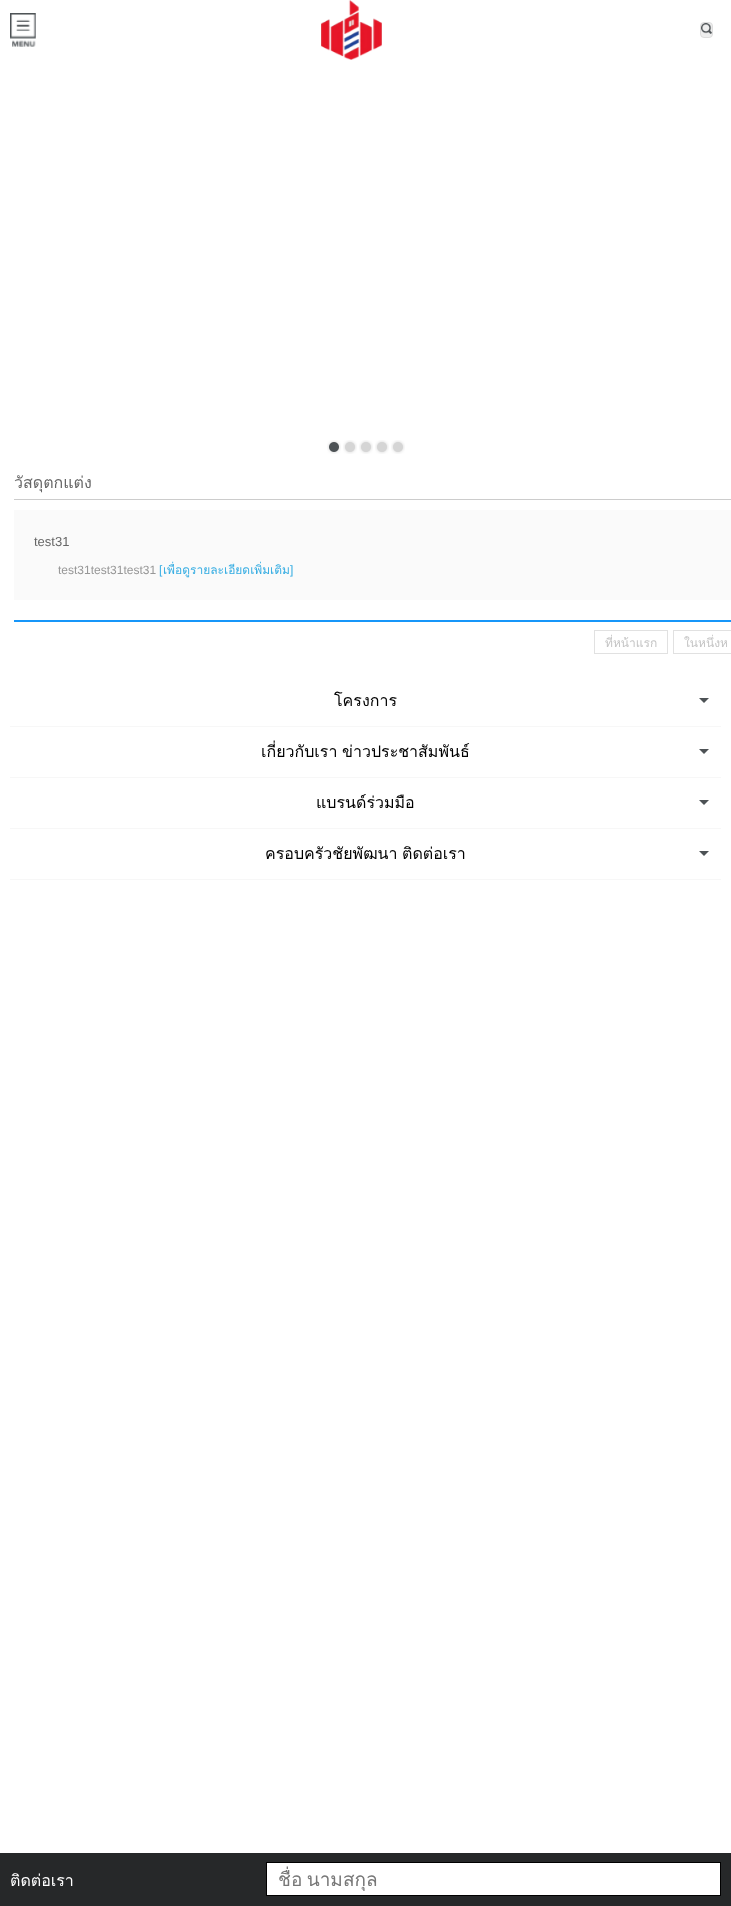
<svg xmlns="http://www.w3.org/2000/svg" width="731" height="1906">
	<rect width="100%" height="100%" fill="#FFFFFF" />
	<image x="10" y="13" width="26" height="34" href="assets/img1.png" />
	<image x="321" y="0" width="61" height="60" href="assets/img2.png" />
	<rect x="700.5" y="22.5" width="12" height="15" rx="3.5" fill="#EEEEEE" stroke="#DDDDDD" />
	<image x="701" y="23" width="11" height="11" href="assets/img3.png" />
	<image x="327" y="440" width="14" height="14" href="assets/img4.png" />
	<image x="343" y="440" width="14" height="14" href="assets/img5.png" />
	<image x="359" y="440" width="14" height="14" href="assets/img5.png" />
	<image x="375" y="440" width="14" height="14" href="assets/img5.png" />
	<image x="391" y="440" width="14" height="14" href="assets/img5.png" />
	<rect x="14" y="499" width="717" height="1" fill="#CCCCCC" />
	<text x="14" y="488" font-family="Loma" font-size="16" fill="#666666">วัสดุตกแต่ง</text>
	<rect x="14" y="510" width="717" height="90" fill="#FAFAFA" />
	<text x="34" y="546" font-family="Liberation Sans" font-size="13" fill="#666666">test31</text>
	<text x="58" y="574" font-family="Liberation Sans" font-size="12" fill="#979797">test31test31test31</text>
	<text x="159" y="574" font-family="Liberation Sans" font-size="12" fill="#34ACE2">[</text>
	<text x="163" y="574" font-family="Loma" font-size="12" fill="#34ACE2">เพื่อดูรายละเอียดเพิ่มเติม</text>
	<text x="290" y="574" font-family="Liberation Sans" font-size="12" fill="#34ACE2">]</text>
	<rect x="14" y="620" width="717" height="2" fill="#1796F9" />
	<rect x="594.5" y="630.5" width="73" height="23" fill="none" stroke="#E1E1E1" />
	<text x="605" y="647" font-family="Loma" font-size="12" fill="#C4C4C4">ที่หน้าแรก</text>
	<rect x="673.5" y="630.5" width="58" height="23" fill="none" stroke="#E1E1E1" />
	<text x="684" y="647" font-family="Loma" font-size="12" fill="#C4C4C4">ในหนึ่งห</text>
	<rect x="10" y="726" width="711" height="1" fill="#F7F7F7" />
	<text x="334" y="706" font-family="Loma" font-size="16" fill="#000000">โครงการ</text>
	<path d="M699 698H709L704 703Z" fill="#4D5255" />
	<rect x="10" y="777" width="711" height="1" fill="#F7F7F7" />
	<g font-family="Loma" font-size="16" fill="#000000">
		<text x="261" y="757">เกี่ยวกับเรา</text>
		<text x="342" y="757">ข่าวประชาสัมพันธ์</text>
	</g>
	<path d="M699 749H709L704 754Z" fill="#4D5255" />
	<rect x="10" y="828" width="711" height="1" fill="#F7F7F7" />
	<text x="316" y="808" font-family="Loma" font-size="16" fill="#000000">แบรนด์ร่วมมือ</text>
	<path d="M699 800H709L704 805Z" fill="#4D5255" />
	<rect x="10" y="879" width="711" height="1" fill="#F7F7F7" />
	<g font-family="Loma" font-size="16" fill="#000000">
		<text x="265" y="859">ครอบครัวชัยพัฒนา</text>
		<text x="402" y="859">ติดต่อเรา</text>
	</g>
	<path d="M699 851H709L704 856Z" fill="#4D5255" />
	<rect x="0" y="1853" width="731" height="53" fill="#262829" />
	<text x="10" y="1886" font-family="Loma" font-size="16" fill="#FFFFFF">ติดต่อเรา</text>
	<rect x="266.5" y="1862.5" width="454" height="33" fill="#FFFFFF" stroke="#000000" />
	<text x="278" y="1886" word-spacing="-2" font-family="Loma" font-size="19" fill="#777777">ชื่อ นามสกุล</text>
</svg>
